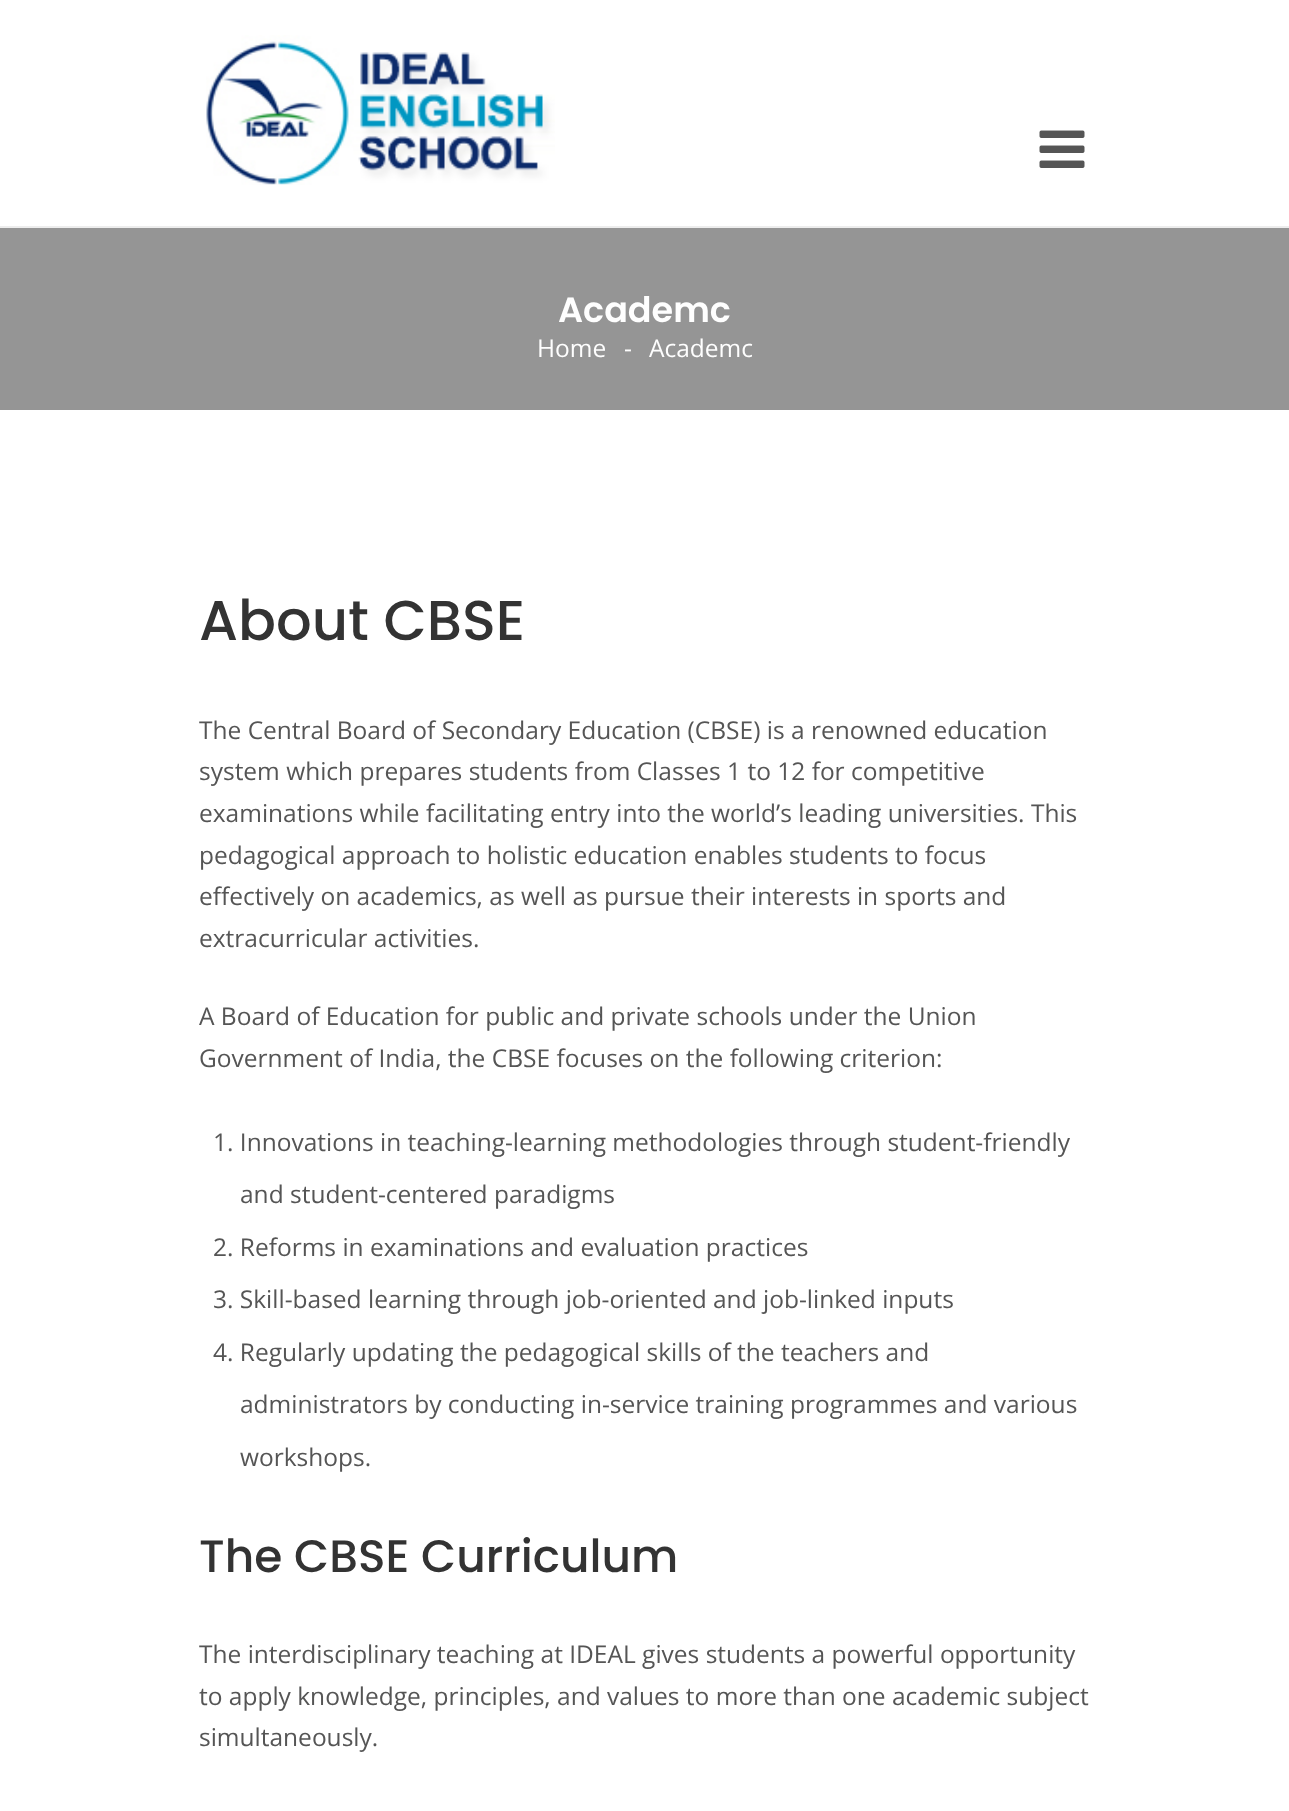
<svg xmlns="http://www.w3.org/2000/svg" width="1289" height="1811">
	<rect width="100%" height="100%" fill="#FFFFFF" />
	<rect x="0" y="226" width="1289" height="2" fill="#EDEDED" />
	<image x="206" y="35" width="349" height="150" href="assets/img1.png" />
	<image x="1039" y="130" width="46" height="38" href="assets/img2.png" />
	<rect x="0" y="228" width="1289" height="182" fill="#959595" />
	<text x="558" y="322" font-family="Poppins" font-size="35" font-weight="600" fill="#FEFEFE">Academc</text>
	<g font-family="Open Sans" font-size="24.5" fill="#FEFEFE">
		<text x="537" y="357">Home</text>
		<text x="624" y="357">-</text>
		<text x="649" y="357">Academc</text>
	</g>
	<text x="199" y="640" font-family="Poppins" font-size="56" font-weight="500" fill="#333333">About CBSE</text>
	<g font-family="Open Sans" font-size="24.5" fill="#555555">
		<text x="199" y="739">The Central Board of Secondary Education (CBSE) is a renowned education</text>
		<text x="199" y="780">system which prepares students from Classes 1 to 12 for competitive</text>
		<text x="199" y="822">examinations while facilitating entry into the world’s leading universities. This</text>
		<text x="199" y="864">pedagogical approach to holistic education enables students to focus</text>
		<text x="199" y="905">effectively on academics, as well as pursue their interests in sports and</text>
		<text x="199" y="947">extracurricular activities.</text>
		<text x="199" y="1025">A Board of Education for public and private schools under the Union</text>
		<text x="199" y="1067">Government of India, the CBSE focuses on the following criterion:</text>
		<text x="213" y="1151">1. Innovations in teaching-learning methodologies through student-friendly</text>
		<text x="240" y="1203">and student-centered paradigms</text>
		<text x="213" y="1256">2. Reforms in examinations and evaluation practices</text>
		<text x="213" y="1308">3. Skill-based learning through job-oriented and job-linked inputs</text>
		<text x="213" y="1361">4. Regularly updating the pedagogical skills of the teachers and</text>
		<text x="240" y="1413">administrators by conducting in-service training programmes and various</text>
		<text x="240" y="1466">workshops.</text>
	</g>
	<text x="199" y="1572" font-family="Poppins" font-size="45.5" font-weight="500" fill="#333333">The CBSE Curriculum</text>
	<g font-family="Open Sans" font-size="24.5" fill="#555555">
		<text x="199" y="1663">The interdisciplinary teaching at IDEAL gives students a powerful opportunity</text>
		<text x="199" y="1705">to apply knowledge, principles, and values to more than one academic subject</text>
		<text x="199" y="1746">simultaneously.</text>
	</g>
</svg>
